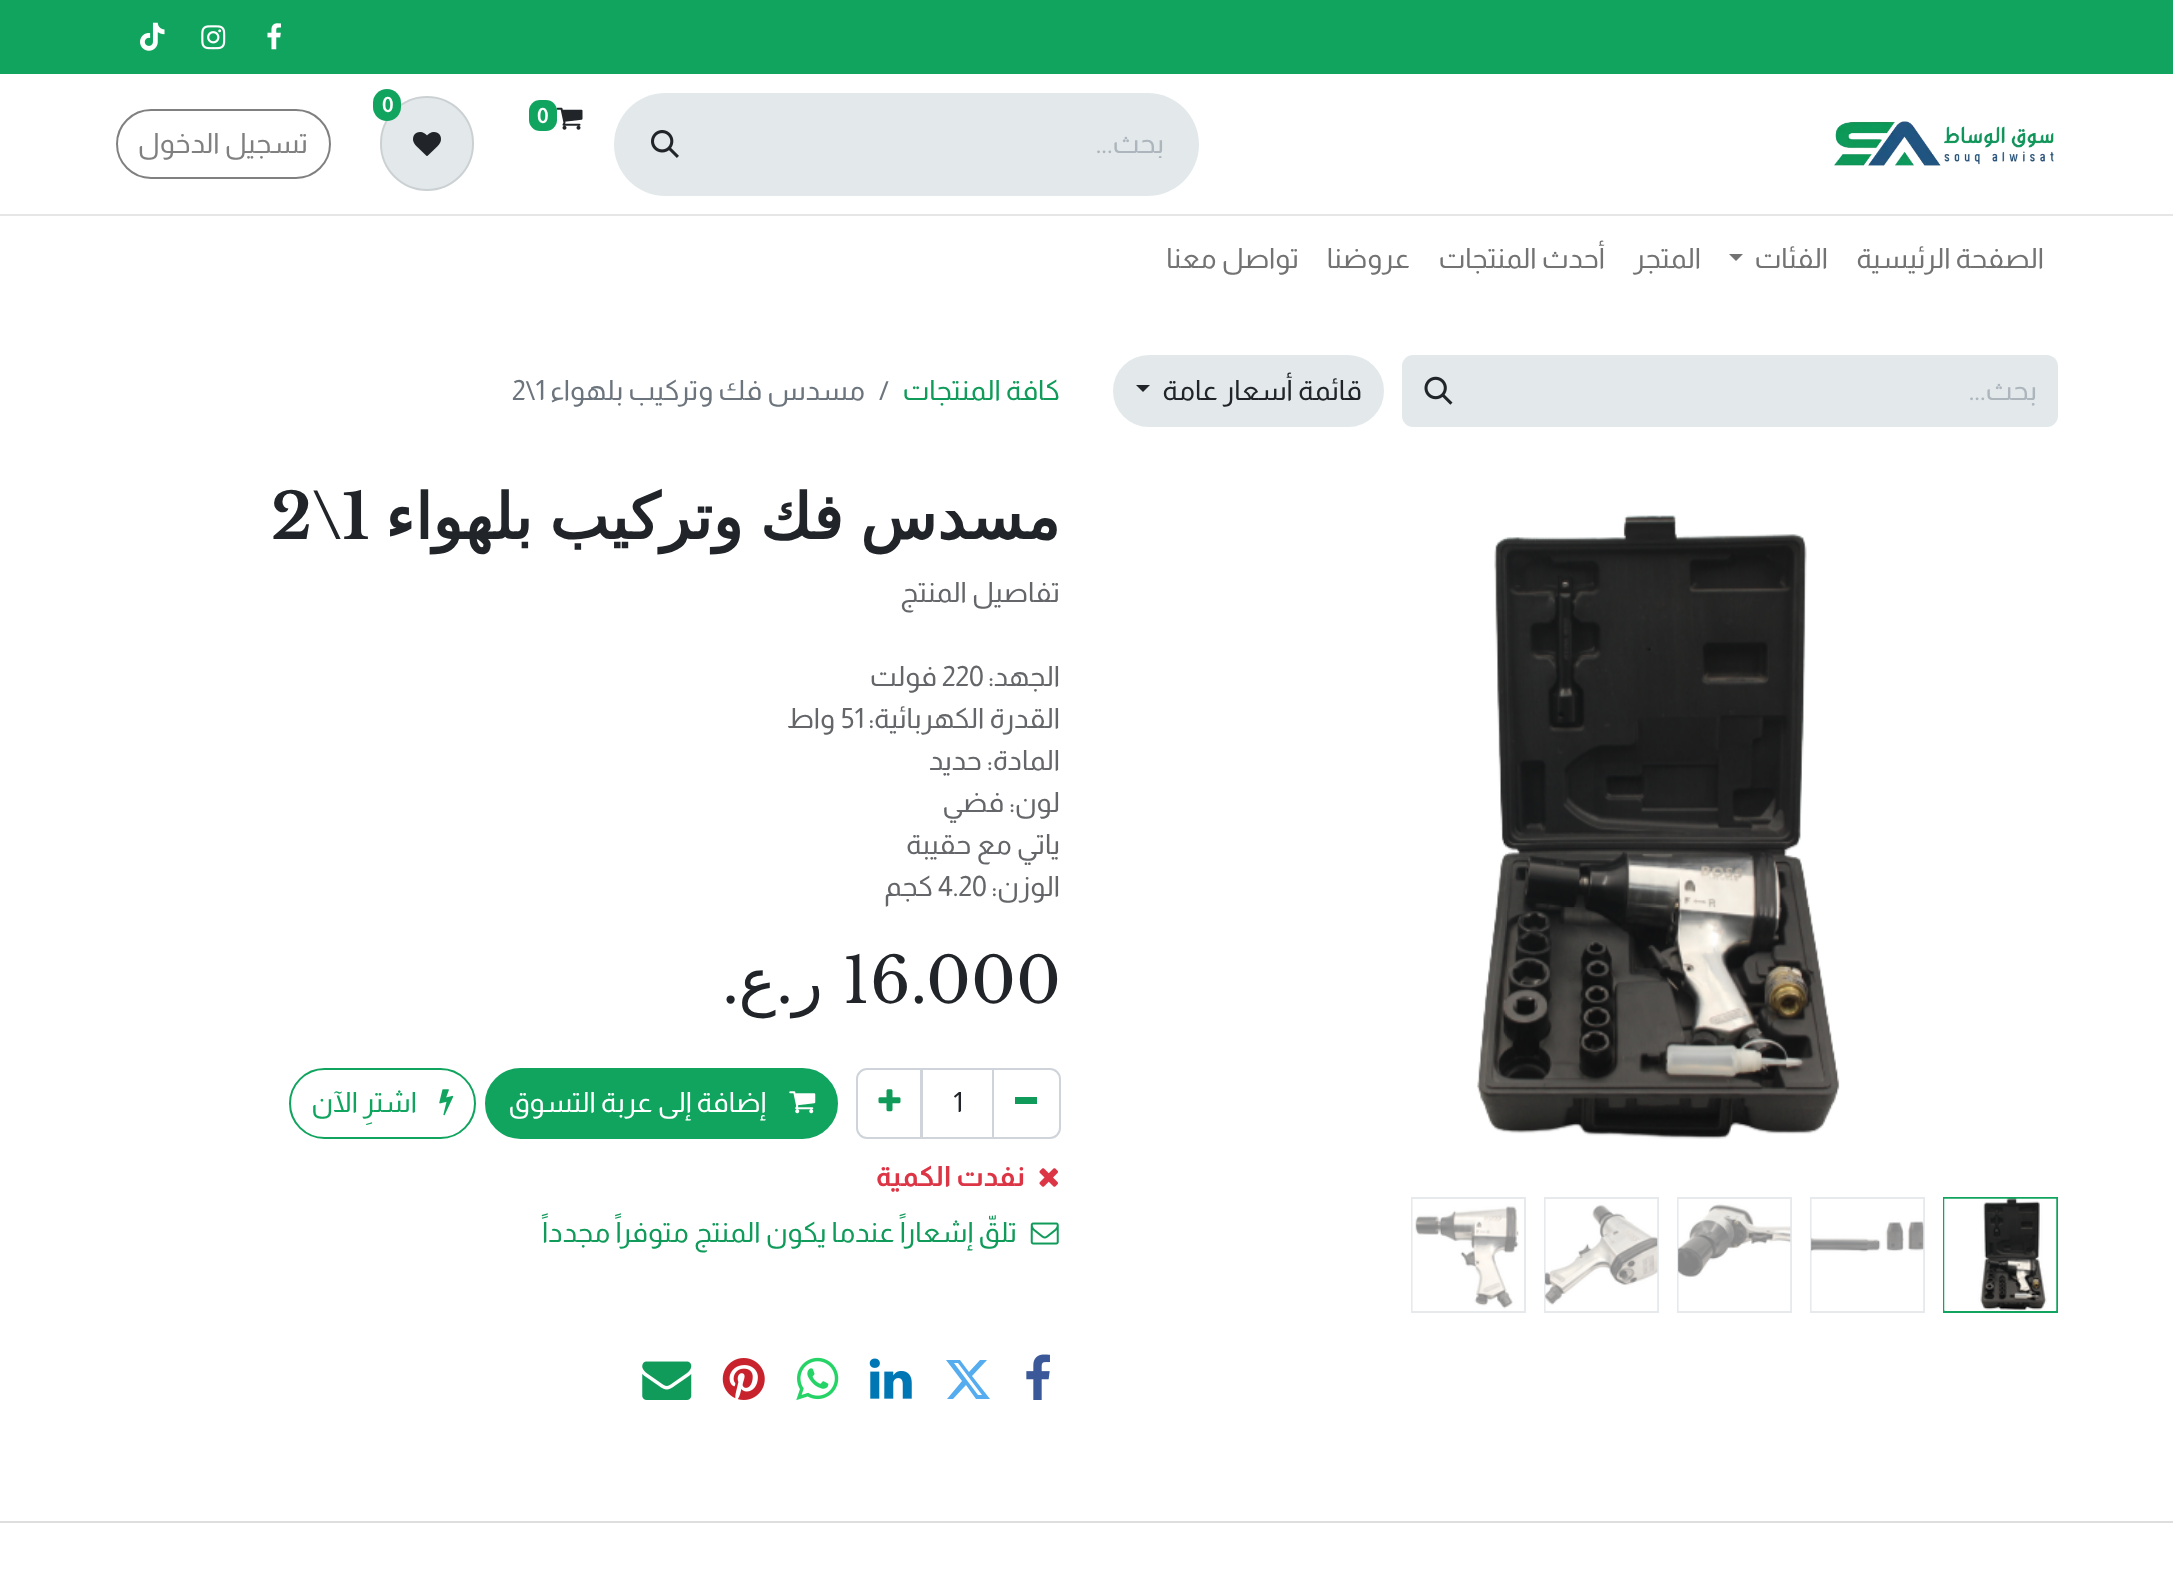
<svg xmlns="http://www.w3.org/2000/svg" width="2173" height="1584">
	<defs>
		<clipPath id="clip1"><rect x="781" y="128" width="383" height="30" /></clipPath>
	</defs>
	<rect width="100%" height="100%" fill="#FFFFFF" />
	<rect x="0" y="0" width="2173" height="74" fill="#11A45F" />
	<image x="267" y="23" width="14" height="27" href="assets/img1.png" />
	<image x="201" y="25" width="25" height="25" href="assets/img2.png" />
	<image x="140" y="22" width="25" height="29" href="assets/img3.png" />
	<image x="1834" y="121" width="220" height="45" href="assets/img4.png" />
	<rect x="380" y="96" width="94" height="95" rx="47" fill="#E3E9EB" />
	<rect x="381" y="97" width="92" height="93" rx="46" fill="none" stroke="#000000" stroke-opacity="0.1" stroke-width="2" />
	<rect x="373" y="89" width="28" height="32" rx="14" fill="#11A45F" />
	<text x="382" y="112" font-family="Almarai" font-size="21" font-weight="700" fill="#FFFFFF">0</text>
	<image x="413" y="132" width="28" height="24" href="assets/img5.png" />
	<image x="556" y="107" width="27" height="23" href="assets/img6.png" />
	<rect x="529" y="100" width="28" height="31" rx="11" fill="#11A45F" />
	<text x="537" y="123" font-family="Almarai" font-size="21" font-weight="700" fill="#FFFFFF">0</text>
	<path d="M714 93H1147.5C1176 93 1199 116 1199 144.5C1199 173 1176 196 1147.5 196H714Z" fill="#E3E9EB" />
	<g clip-path="url(#clip1)">
		<text x="1164" y="153" font-family="Almarai" font-size="28" direction="rtl" fill="#ADB5BD">بحث...</text>
	</g>
	<path d="M665.5 93H716V196H665.5C637 196 614 173 614 144.5C614 116 637 93 665.5 93Z" fill="#E3E9EB" />
	<image x="651" y="130" width="28" height="28" href="assets/img7.png" />
	<rect x="117" y="110" width="213" height="68" rx="34" fill="none" stroke="#808080" stroke-width="2" />
	<text x="308" y="153" font-family="Almarai" font-size="28" direction="rtl" fill="#808080">تسجيل الدخول</text>
	<rect x="0" y="214" width="2173" height="2" fill="#E6E6E6" />
	<g font-family="Almarai" font-size="28" direction="rtl" fill="#737373">
		<text x="2044" y="268">الصفحة الرئيسية</text>
		<text x="1828" y="268">الفئات</text>
	</g>
	<path d="M1729 254H1743L1736 261Z" fill="#737373" />
	<g font-family="Almarai" font-size="28" direction="rtl" fill="#737373">
		<text x="1701" y="268">المتجر</text>
		<text x="1605" y="268">أحدث المنتجات</text>
		<text x="1410" y="268">عروضنا</text>
		<text x="1299" y="268">تواصل معنا</text>
	</g>
	<path d="M1474 355H2047C2053 355 2058 360 2058 366V416C2058 422 2053 427 2047 427H1474Z" fill="#E3E9EB" />
	<text x="2037" y="400" font-family="Almarai" font-size="28" direction="rtl" fill="#ADB5BD">بحث...</text>
	<path d="M1413 356H1474V426H1413C1407.5 426 1403 421.5 1403 416V366C1403 360.5 1407.5 356 1413 356Z" fill="#E3E9EB" stroke="#E3E9EB" stroke-width="2" />
	<image x="1424" y="376" width="29" height="29" href="assets/img8.png" />
	<rect x="1114" y="356" width="269" height="70" rx="35" fill="#E3E9EB" stroke="#E3E9EB" stroke-width="2" />
	<text x="1362" y="400" font-family="Almarai" font-size="28" direction="rtl" fill="#212529">قائمة أسعار عامة</text>
	<path d="M1136 385H1150L1143 392Z" fill="#212529" />
	<text x="1060" y="400" font-family="Almarai" font-size="28" direction="rtl" fill="#109B5A">كافة المنتجات</text>
	<text x="879" y="400" font-family="Almarai" font-size="28" fill="#6C757D">/</text>
	<text x="865" y="400" font-family="Almarai" font-size="28" direction="rtl" fill="#6C757D">مسدس فك وتركيب بلهواء</text>
	<text x="512" y="400" font-family="Almarai" font-size="28" fill="#6C757D">2\1</text>
	<image x="1477" y="515" width="363" height="624" href="assets/img9.png" />
	<rect x="1944" y="1198" width="113" height="114" fill="none" stroke="#11A45F" stroke-width="2" />
	<image x="1944" y="1198" width="113" height="113" href="assets/img10.png" />
	<rect x="1811" y="1198" width="113" height="114" fill="none" stroke="#E7EAED" stroke-width="2" />
	<image x="1811" y="1199" width="113" height="112" href="assets/img11.png" />
	<rect x="1678" y="1198" width="113" height="114" fill="none" stroke="#E7EAED" stroke-width="2" />
	<image x="1678" y="1199" width="113" height="112" href="assets/img12.png" />
	<rect x="1545" y="1198" width="113" height="114" fill="none" stroke="#E7EAED" stroke-width="2" />
	<image x="1545" y="1199" width="113" height="112" href="assets/img13.png" />
	<rect x="1412" y="1198" width="113" height="114" fill="none" stroke="#E7EAED" stroke-width="2" />
	<image x="1412" y="1199" width="107" height="112" href="assets/img14.png" />
	<text x="1060" y="539" word-spacing="-3" font-family="DejaVu Sans" font-size="63" font-weight="700" direction="rtl" fill="#212529">مسدس فك وتركيب بلهواء</text>
	<text x="271" y="539" font-family="Libre Baskerville" font-size="63" font-weight="700" fill="#212529">2\1</text>
	<g font-family="Almarai" font-size="28" direction="rtl" fill="#646669">
		<text x="1060" y="602">تفاصيل المنتج</text>
		<text x="1060" y="686">الجهد:</text>
	</g>
	<text x="942" y="686" font-family="Almarai" font-size="28" fill="#646669">220</text>
	<g font-family="Almarai" font-size="28" direction="rtl" fill="#646669">
		<text x="937" y="686">فولت</text>
		<text x="1060" y="728">القدرة الكهربائية:</text>
	</g>
	<text x="841" y="728" font-family="Almarai" font-size="28" fill="#646669">51</text>
	<g font-family="Almarai" font-size="28" direction="rtl" fill="#646669">
		<text x="835" y="728">واط</text>
		<text x="1060" y="770">المادة: حديد</text>
		<text x="1060" y="812">لون: فضي</text>
		<text x="1060" y="854">ياتي مع حقيبة</text>
		<text x="1060" y="896">الوزن:</text>
	</g>
	<text x="938" y="896" font-family="Almarai" font-size="28" fill="#646669">4.20</text>
	<text x="933" y="896" font-family="Almarai" font-size="28" direction="rtl" fill="#646669">كجم</text>
	<text x="842" y="1003" font-family="Libre Baskerville" font-size="63" fill="#212529">16.000</text>
	<text x="823" y="1003" font-family="DejaVu Sans" font-size="63" direction="rtl" fill="#212529">ر</text>
	<text x="793" y="1003" font-family="Libre Baskerville" font-size="63" direction="rtl" fill="#212529">.</text>
	<text x="776" y="1003" font-family="DejaVu Sans" font-size="63" direction="rtl" fill="#212529">ع</text>
	<text x="739" y="1003" font-family="Libre Baskerville" font-size="63" direction="rtl" fill="#212529">.</text>
	<rect x="922" y="1069" width="71" height="69" fill="none" stroke="#CED4DA" stroke-width="2" />
	<path d="M993 1069H1050C1055.5 1069 1060 1073.5 1060 1079V1128C1060 1133.5 1055.5 1138 1050 1138H993Z" fill="none" stroke="#CED4DA" stroke-width="2" />
	<rect x="1015" y="1097" width="22" height="7" fill="#109B5A" />
	<text x="953" y="1112" font-family="Almarai" font-size="28" fill="#212529">1</text>
	<path d="M867 1069H921V1138H867C861.5 1138 857 1133.5 857 1128V1079C857 1073.5 861.5 1069 867 1069Z" fill="none" stroke="#CED4DA" stroke-width="2" />
	<image x="878" y="1089" width="23" height="23" href="assets/img15.png" />
	<rect x="486" y="1069" width="351" height="69" rx="34.5" fill="#11A45F" stroke="#11A45F" stroke-width="2" />
	<image x="789" y="1091" width="27" height="23" href="assets/img16.png" />
	<text x="766" y="1112" font-family="Almarai" font-size="28" direction="rtl" fill="#FFFFFF">إضافة إلى عربة التسوق</text>
	<rect x="290" y="1069" width="185" height="69" rx="34.5" fill="none" stroke="#11A45F" stroke-width="2" />
	<image x="439" y="1089" width="15" height="27" href="assets/img17.png" />
	<text x="417" y="1112" font-family="Almarai" font-size="28" direction="rtl" fill="#11A45F">اشترِ الآن</text>
	<image x="1039" y="1168" width="19" height="19" href="assets/img18.png" />
	<text x="1025" y="1186" font-family="Almarai" font-size="28" font-weight="700" direction="rtl" fill="#DC3545">نفدت الكمية</text>
	<image x="1030" y="1222" width="29" height="23" href="assets/img19.png" />
	<text x="1017" y="1242" font-family="Almarai" font-size="28" direction="rtl" fill="#109B5A">تلقّ إشعاراً عندما يكون المنتج متوفراً مجدداً</text>
	<image x="1026" y="1354" width="24" height="46" href="assets/img20.png" />
	<path d="M980 1360H987L972 1376L990 1399H976L966 1385L953 1399H947L962 1381L946 1360H960L969 1372ZM978 1395H982L958 1363H954Z" fill="#55ACEE" />
	<image x="869" y="1358" width="43" height="41" href="assets/img21.png" />
	<image x="796" y="1357" width="43" height="44" href="assets/img22.png" />
	<image x="722" y="1358" width="43" height="42" href="assets/img23.png" />
	<image x="642" y="1361" width="50" height="39" href="assets/img24.png" />
	<rect x="0" y="1521" width="2173" height="2" fill="#DEDEDF" />
</svg>
